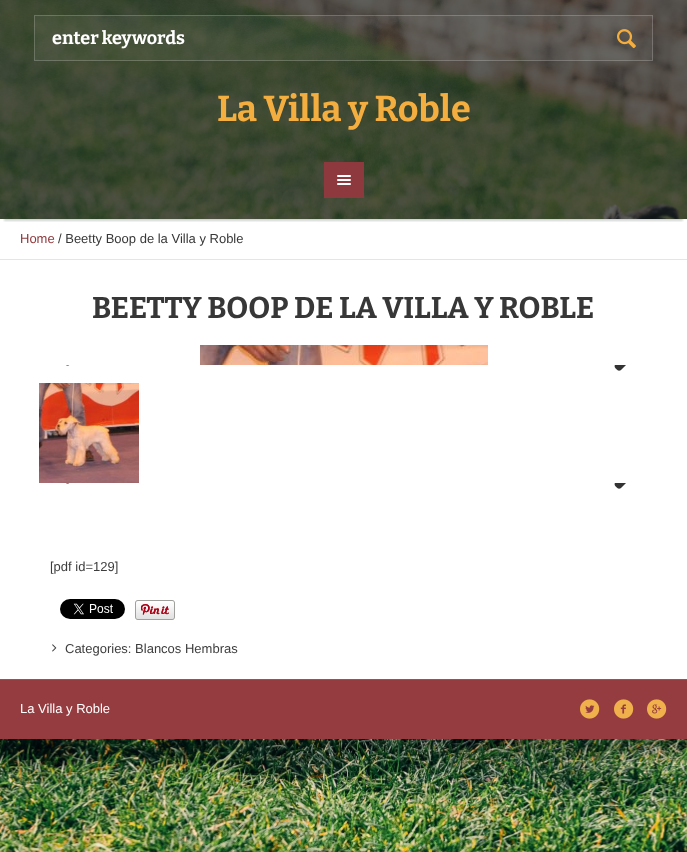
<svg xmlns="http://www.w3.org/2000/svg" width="687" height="852">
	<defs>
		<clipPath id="clip1"><rect x="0" y="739" width="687" height="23" /></clipPath>
		<clipPath id="clip2"><rect x="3" y="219" width="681" height="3" /></clipPath>
	</defs>
	<rect width="100%" height="100%" fill="#FFFFFF" />
	<image x="0" y="0" width="687" height="852" href="assets/img1.png" />
	<g clip-path="url(#clip1)">
		<rect x="-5" y="-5" width="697" height="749" fill="#000000" fill-opacity="0.11" filter="blur(20px)" />
	</g>
	<rect x="0" y="219" width="687" height="40" fill="#FFFFFF" />
	<g clip-path="url(#clip2)">
		<rect x="4" y="10" width="679" height="211" fill="#191C1E" fill-opacity="0.2" filter="blur(1px)" />
	</g>
	<rect x="0" y="0" width="687" height="142" fill="#191C1E" fill-opacity="0.7" />
	<rect x="34" y="15" width="619" height="46" fill="#FFFFFF" fill-opacity="0.05" />
	<rect x="34.5" y="15.5" width="618" height="45" fill="none" stroke="#FFFFFF" stroke-opacity="0.2" />
	<text x="52" y="44" font-family="Bitter" font-size="18" font-weight="700" fill="#FFFFFF">enter keywords</text>
	<image x="617" y="29" width="19" height="20" href="assets/img2.png" />
	<text x="217" y="121" font-family="Bitter" font-size="36" font-weight="700" fill="#F4AE40">La Villa y Roble</text>
	<rect x="0" y="142" width="687" height="77" fill="#191C1E" fill-opacity="0.7" />
	<rect x="324" y="162" width="40" height="36" fill="#8E393D" />
	<image x="337" y="175" width="14" height="10" href="assets/img3.png" />
	<rect x="0" y="259" width="687" height="1" fill="#E5E5E5" />
	<text x="20" y="243" font-family="Liberation Sans" font-size="13" fill="#8E393D">Home</text>
	<text x="58" y="243" font-family="Liberation Sans" font-size="13" fill="#373737">/ Beetty Boop de la Villa y Roble</text>
	<rect x="0" y="260" width="687" height="419" fill="#FFFFFF" />
	<text x="92" y="318" font-family="Bitter" font-size="30" font-weight="700" fill="#373737">BEETTY BOOP DE LA VILLA Y ROBLE</text>
	<image x="200" y="345" width="288" height="20" href="assets/img4.png" />
	<image x="66" y="365" width="4" height="1" href="assets/img5.png" />
	<image x="614" y="365" width="12" height="6" href="assets/img6.png" />
	<image x="39" y="383" width="100" height="100" href="assets/img7.png" />
	<image x="66" y="483" width="4" height="1" href="assets/img5.png" />
	<image x="614" y="483" width="12" height="6" href="assets/img6.png" />
	<text x="50" y="571" font-family="Liberation Sans" font-size="13" fill="#3D3D3D">[pdf id=129]</text>
	<image x="60" y="599" width="65" height="20" href="assets/img8.png" />
	<image x="135" y="600" width="40" height="20" href="assets/img9.png" />
	<image x="52" y="644" width="5" height="8" href="assets/img10.png" />
	<text x="65" y="653" font-family="Liberation Sans" font-size="13" fill="#3D3D3D">Categories: Blancos Hembras</text>
	<rect x="0" y="680" width="687" height="59" fill="#953C40" />
	<rect x="0" y="679" width="687" height="1" fill="#A05053" />
	<text x="20" y="713" font-family="Liberation Sans" font-size="13" fill="#FFFFFF">La Villa y Roble</text>
	<image x="580" y="699" width="20" height="20" href="assets/img11.png" />
	<image x="614" y="699" width="20" height="20" href="assets/img12.png" />
	<image x="647" y="699" width="20" height="20" href="assets/img13.png" />
</svg>
